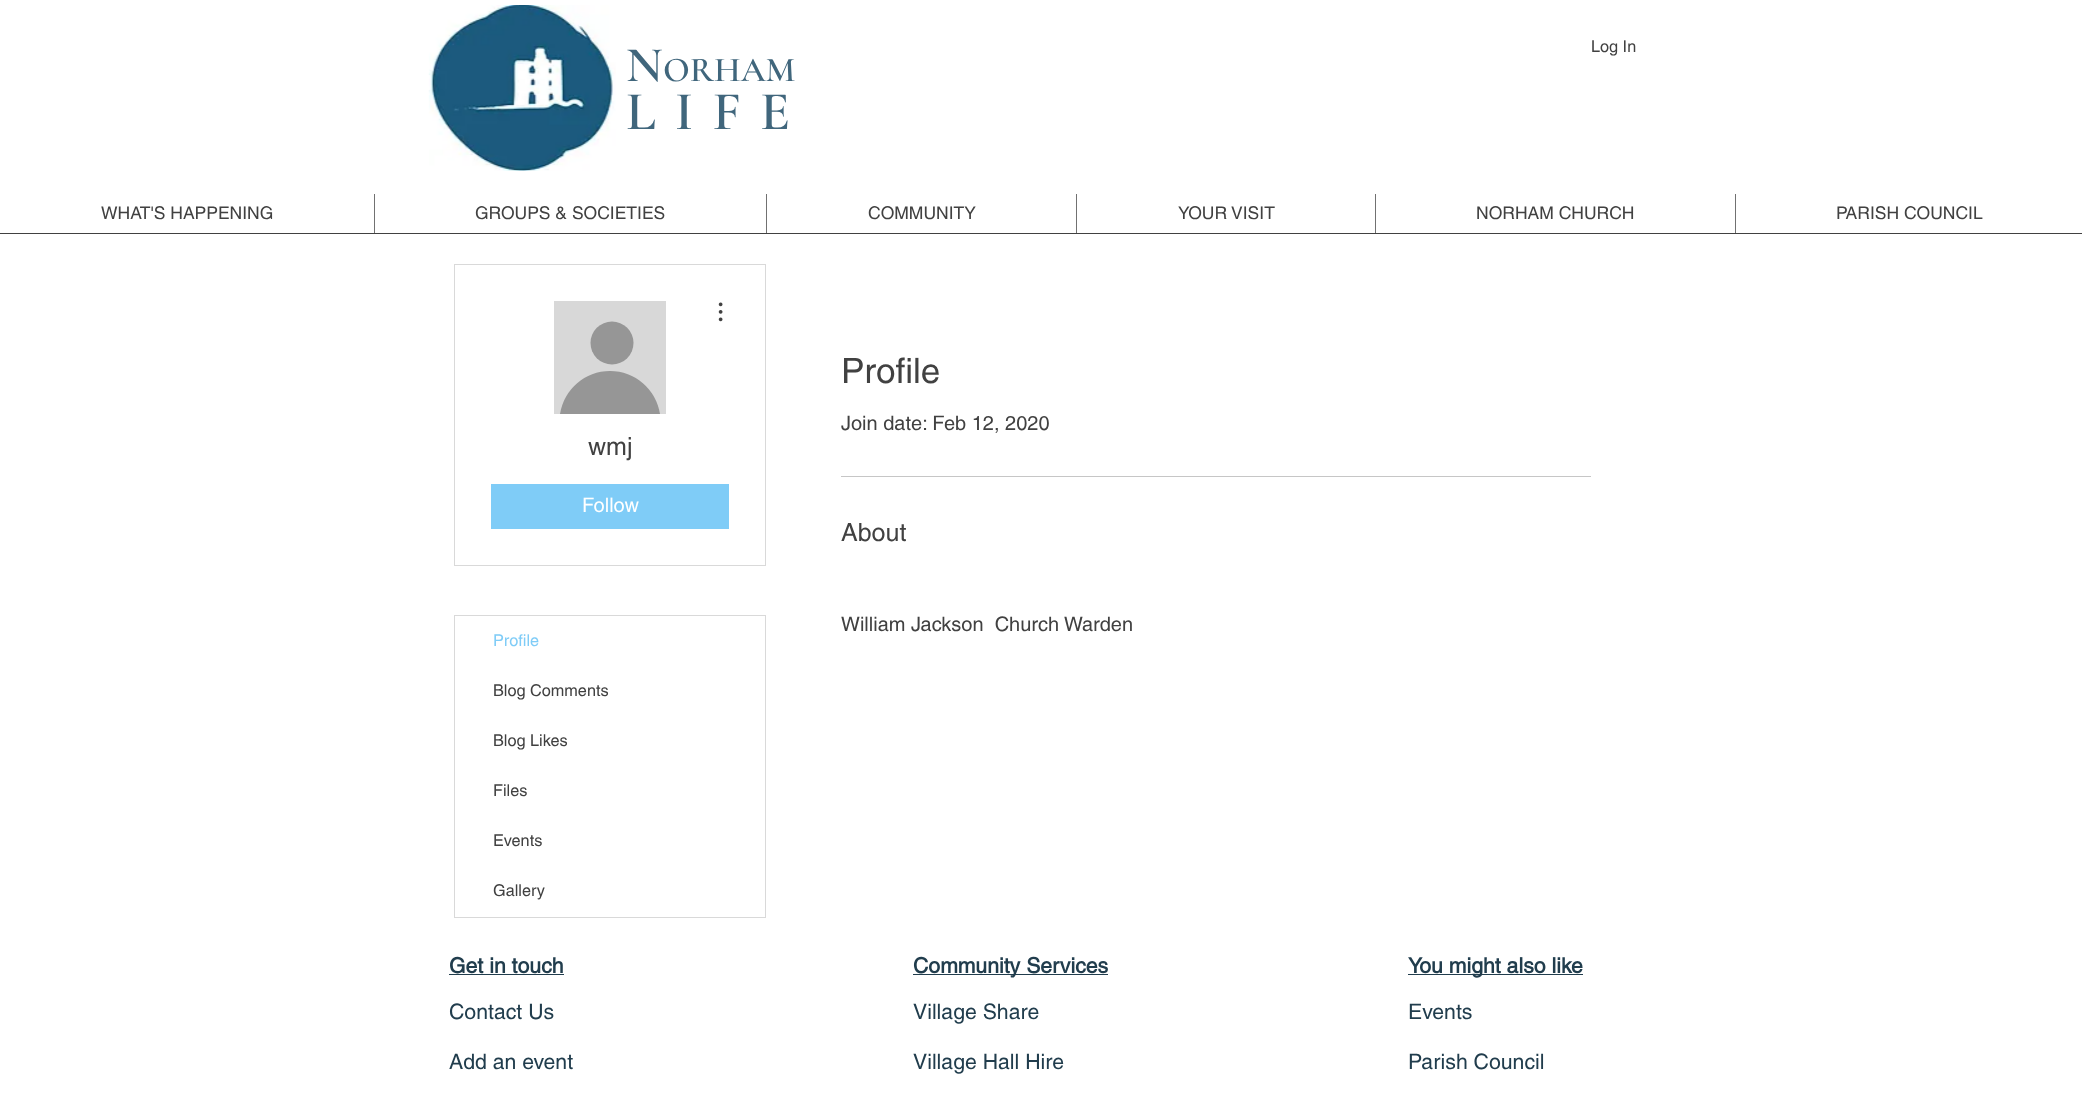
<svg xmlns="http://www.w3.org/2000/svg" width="2082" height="1109">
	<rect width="100%" height="100%" fill="#FFFFFF" />
	<image x="428" y="5" width="188" height="166" href="assets/img1.png" />
	<text x="626" y="81" font-family="Cormorant Garamond" font-size="50" font-weight="600" fill="#40667C">N</text>
	<text x="663" y="81" font-family="Cormorant Garamond" font-size="35" font-weight="600" fill="#40667C">ORHAM</text>
	<text x="626" y="129" font-family="Cormorant Garamond" font-size="55" font-weight="600" letter-spacing="19" fill="#40667C">LIFE</text>
	<text x="1591" y="52" font-family="helvetica" font-size="16.25" fill="#414141">Log In</text>
	<text x="101" y="219" font-family="helvetica" font-size="17.5" fill="#414141">WHAT'S HAPPENING</text>
	<rect x="374" y="194" width="1" height="39" fill="#717171" />
	<text x="475" y="219" font-family="helvetica" font-size="17.5" fill="#414141">GROUPS &amp; SOCIETIES</text>
	<rect x="766" y="194" width="1" height="39" fill="#717171" />
	<text x="868" y="219" font-family="helvetica" font-size="17.5" fill="#414141">COMMUNITY</text>
	<rect x="1076" y="194" width="1" height="39" fill="#717171" />
	<text x="1178" y="219" font-family="helvetica" font-size="17.5" fill="#414141">YOUR VISIT</text>
	<rect x="1375" y="194" width="1" height="39" fill="#717171" />
	<text x="1476" y="219" font-family="helvetica" font-size="17.5" fill="#414141">NORHAM CHURCH</text>
	<rect x="1735" y="194" width="1" height="39" fill="#717171" />
	<text x="1836" y="219" font-family="helvetica" font-size="17.5" fill="#414141">PARISH COUNCIL</text>
	<rect x="0" y="233" width="2082" height="1" fill="#414141" />
	<rect x="454.5" y="264.5" width="311" height="301" fill="none" stroke="#D9D9D9" />
	<rect x="554" y="301" width="112" height="113" fill="#D8D8D8" />
	<circle cx="612" cy="343" r="21.5" fill="#969696" />
	<path d="M660 414C656 389 635 371 610 371C585 371 564 389 560 414Z" fill="#969696" />
	<image x="718" y="302" width="5" height="20" href="assets/img2.png" />
	<text x="588" y="455" font-family="helvetica" font-size="25" fill="#414141">wmj</text>
	<rect x="491" y="484" width="238" height="45" fill="#7FCCF7" />
	<text x="582" y="512" font-family="helvetica" font-size="20" fill="#FFFFFF">Follow</text>
	<rect x="454.5" y="615.5" width="311" height="302" fill="none" stroke="#D9D9D9" />
	<text x="493" y="646" font-family="helvetica" font-size="16.25" fill="#7FCCF7">Profile</text>
	<g font-family="helvetica" font-size="16.25" fill="#414141">
		<text x="493" y="696">Blog Comments</text>
		<text x="493" y="746">Blog Likes</text>
		<text x="493" y="796">Files</text>
		<text x="493" y="846">Events</text>
		<text x="493" y="896">Gallery</text>
	</g>
	<text x="841" y="383" font-family="helvetica" font-size="35" fill="#414141">Profile</text>
	<text x="841" y="430" font-family="helvetica" font-size="20" fill="#414141">Join date: Feb 12, 2020</text>
	<rect x="841" y="476" width="750" height="1" fill="#C6C6C6" />
	<text x="841" y="541" font-family="helvetica" font-size="25" fill="#414141">About</text>
	<text x="841" y="631" font-family="helvetica" font-size="20" fill="#414141" xml:space="preserve">William Jackson  Church Warden</text>
	<text x="449" y="973" font-family="helvetica" font-size="21.25" font-weight="700" fill="#213D4D">Get in touch</text>
	<rect x="449" y="974" width="115" height="1" fill="#213D4D" />
	<rect x="913" y="974" width="195" height="1" fill="#213D4D" />
	<text x="913" y="973" font-family="helvetica" font-size="21.25" font-weight="700" fill="#213D4D">Community Services</text>
	<rect x="1408" y="974" width="175" height="1" fill="#213D4D" />
	<text x="1408" y="973" font-family="helvetica" font-size="21.25" font-weight="700" fill="#213D4D">You might also like</text>
	<g font-family="helvetica" font-size="21.25" fill="#213D4D">
		<text x="449" y="1019">Contact Us</text>
		<text x="913" y="1019">Village Share</text>
		<text x="1408" y="1019">Events</text>
		<text x="449" y="1069">Add an event</text>
		<text x="913" y="1069">Village Hall Hire</text>
		<text x="1408" y="1069">Parish Council</text>
	</g>
</svg>
